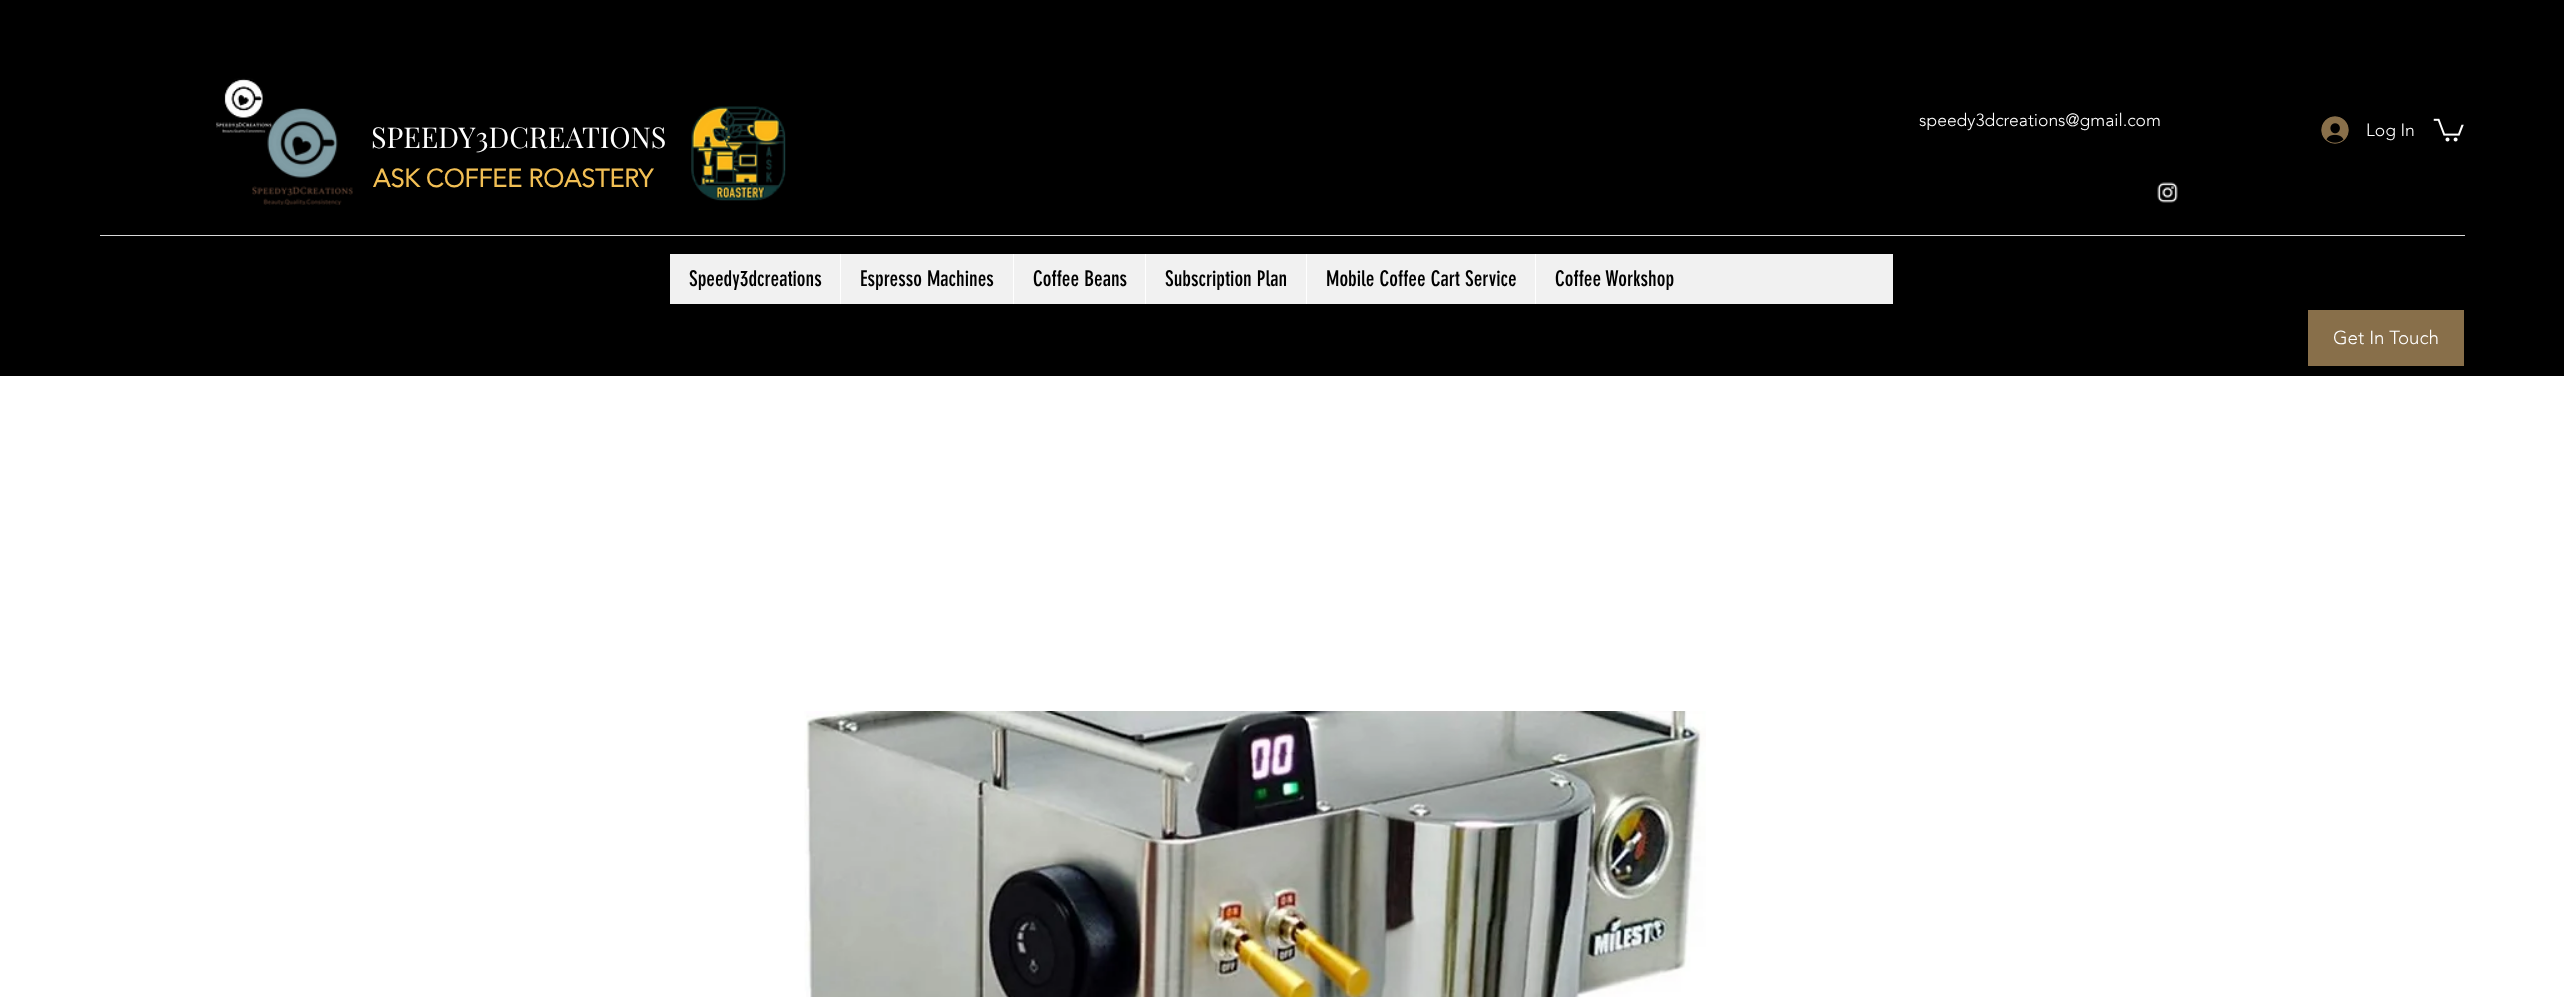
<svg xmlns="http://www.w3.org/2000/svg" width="2564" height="997">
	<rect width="100%" height="100%" fill="#FFFFFF" />
	<rect x="0" y="0" width="2564" height="376" fill="#000000" />
	<image x="216" y="78" width="56" height="55" href="assets/img1.png" />
	<image x="252" y="108" width="101" height="97" href="assets/img2.png" />
	<text x="371" y="148" font-family="Playfair Display" font-size="28.75" fill="#FFFFFF">SPEEDY3DCREATIONS</text>
	<image x="691" y="106" width="95" height="95" href="assets/img3.png" />
	<text x="373" y="187" font-family="'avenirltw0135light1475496'" font-size="25" font-weight="700" fill="#F2BF54">ASK COFFEE ROASTERY</text>
	<text x="1919" y="126" font-family="'avenirltw0135light1475496'" font-size="17.5" font-weight="300" fill="#FFFFFF">speedy3dcreations@gmail.com</text>
	<image x="2321" y="116" width="28" height="28" href="assets/img4.png" />
	<text x="2366" y="136" font-family="'avenirltw0135light1475496'" font-size="17.5" font-weight="300" fill="#FFFFFF">Log In</text>
	<image x="2433" y="118" width="31" height="24" href="assets/img5.png" />
	<image x="2157" y="182" width="21" height="21" href="assets/img6.png" />
	<rect x="100" y="235" width="2365" height="1" fill="#D9D9D9" />
	<rect x="670" y="254" width="1223" height="50" fill="#F1F1F1" />
	<text x="689" y="286" font-family="'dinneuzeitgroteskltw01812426'" font-size="21.25" fill="#000000">Speedy3dcreations</text>
	<rect x="840" y="254" width="1" height="50" fill="#FFFFFF" />
	<text x="860" y="286" font-family="'dinneuzeitgroteskltw01812426'" font-size="21.25" fill="#000000">Espresso Machines</text>
	<rect x="1013" y="254" width="1" height="50" fill="#FFFFFF" />
	<text x="1033" y="286" font-family="'dinneuzeitgroteskltw01812426'" font-size="21.25" fill="#000000">Coffee Beans</text>
	<rect x="1145" y="254" width="1" height="50" fill="#FFFFFF" />
	<text x="1165" y="286" font-family="'dinneuzeitgroteskltw01812426'" font-size="21.25" fill="#000000">Subscription Plan</text>
	<rect x="1306" y="254" width="1" height="50" fill="#FFFFFF" />
	<text x="1326" y="286" font-family="'dinneuzeitgroteskltw01812426'" font-size="21.25" fill="#000000">Mobile Coffee Cart Service</text>
	<rect x="1535" y="254" width="1" height="50" fill="#FFFFFF" />
	<text x="1555" y="286" font-family="'dinneuzeitgroteskltw01812426'" font-size="21.25" fill="#000000">Coffee Workshop</text>
	<rect x="2308" y="310" width="156" height="56" fill="#886F4A" />
	<text x="2333" y="344" font-family="'avenirltw0135light1475496'" font-size="18.75" font-weight="300" fill="#FFFFFF">Get In Touch</text>
	<image x="804" y="711" width="902" height="286" href="assets/img7.png" />
</svg>
